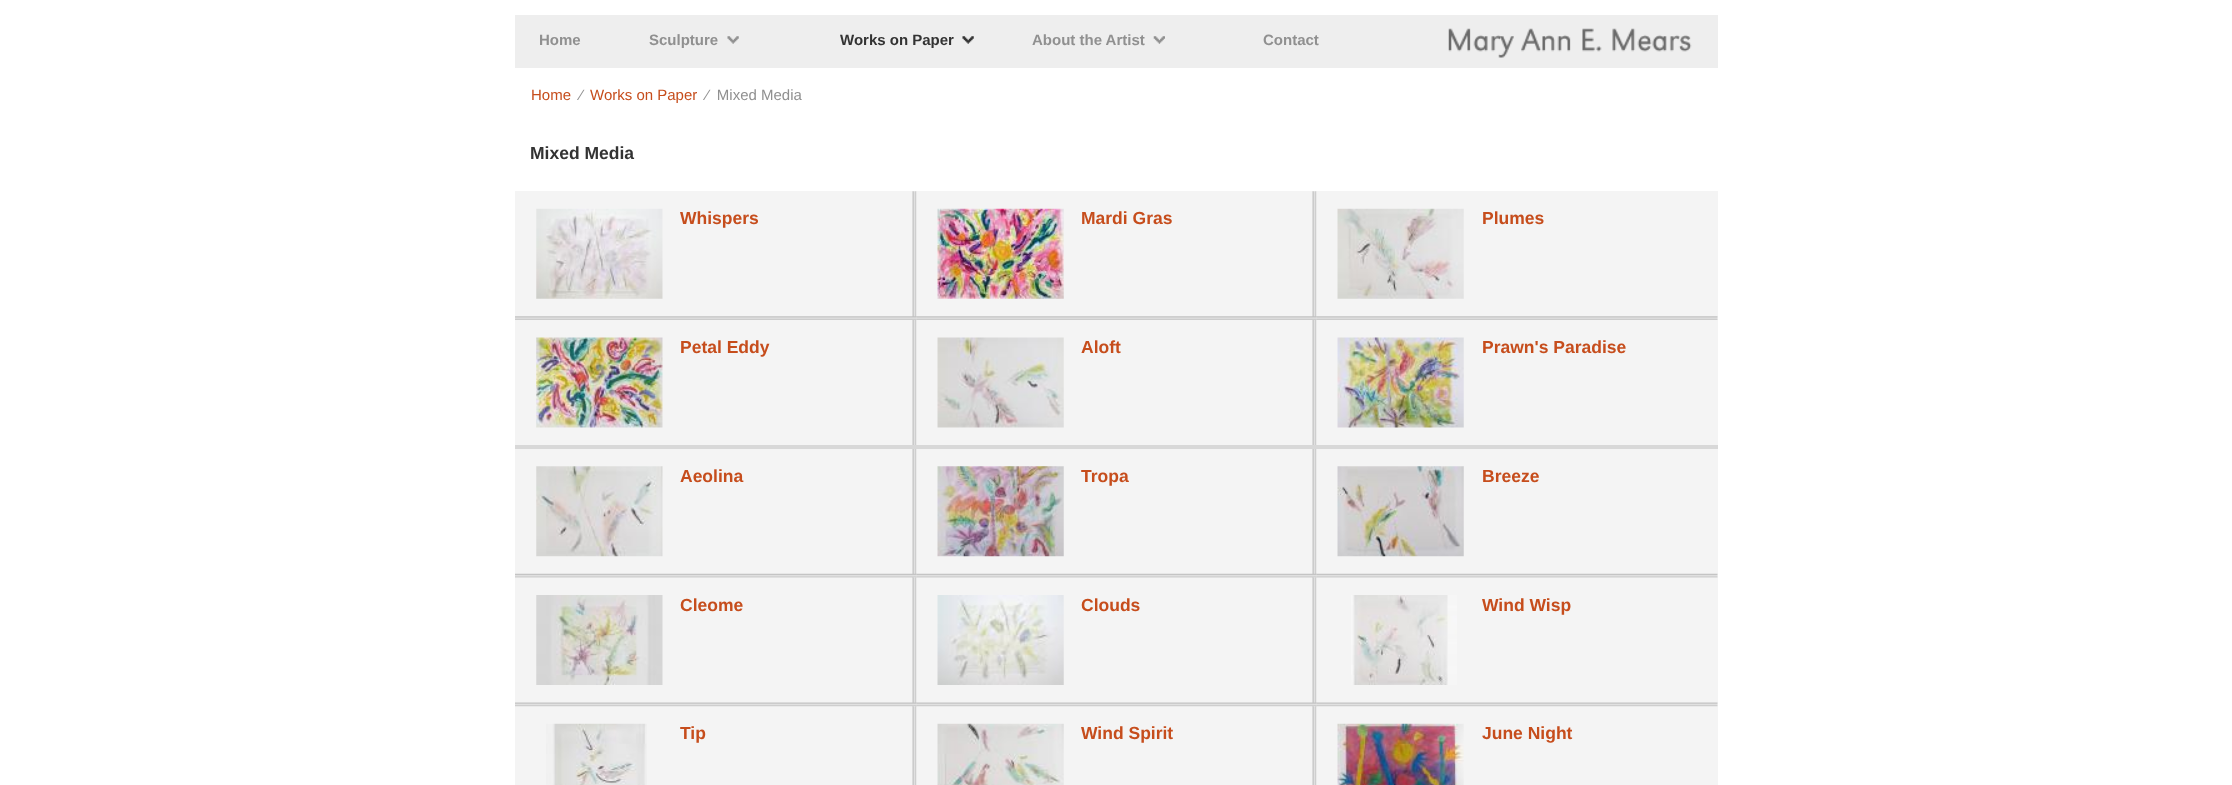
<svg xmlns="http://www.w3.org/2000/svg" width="2232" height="785">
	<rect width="100%" height="100%" fill="#FFFFFF" />
	<rect x="515" y="15" width="1203" height="53" fill="#EEEEEE" />
	<g font-family="Liberation Sans" font-size="15" font-weight="700" fill="#909090">
		<text x="539" y="45">Home</text>
		<text x="649" y="45">Sculpture</text>
	</g>
	<image x="727" y="36" width="12" height="8" href="assets/img1.png" />
	<text x="840" y="45" font-family="Liberation Sans" font-size="15" font-weight="700" fill="#333333">Works on Paper</text>
	<image x="962" y="36" width="12" height="8" href="assets/img2.png" />
	<text x="1032" y="45" font-family="Liberation Sans" font-size="15" font-weight="700" fill="#909090">About the Artist</text>
	<image x="1153" y="36" width="12" height="8" href="assets/img3.png" />
	<text x="1263" y="45" font-family="Liberation Sans" font-size="15" font-weight="700" fill="#909090">Contact</text>
	<image x="1448" y="28" width="244" height="30" href="assets/img4.png" />
	<text x="531" y="100" font-family="Liberation Sans" font-size="15" fill="#C64D1C">Home</text>
	<text x="580" y="100" font-family="Liberation Sans" font-size="15" fill="#909090">⁄</text>
	<text x="590" y="100" font-family="Liberation Sans" font-size="15" fill="#C64D1C">Works on Paper</text>
	<text x="706" y="100" font-family="Liberation Sans" font-size="15" fill="#909090" xml:space="preserve">⁄  Mixed Media</text>
	<text x="530" y="159" font-family="Liberation Sans" font-size="17.5" font-weight="700" fill="#333333">Mixed Media</text>
	<rect x="515" y="191" width="1203" height="594" fill="#F4F4F4" />
	<image x="912" y="191" width="5" height="129" href="assets/img5.png" />
	<image x="515" y="316" width="402" height="4" href="assets/img6.png" />
	<image x="536" y="208" width="127" height="91" href="assets/img7.png" />
	<text x="680" y="224" font-family="Liberation Sans" font-size="17.5" font-weight="700" fill="#C64D1C">Whispers</text>
	<image x="1312" y="191" width="5" height="129" href="assets/img5.png" />
	<image x="916" y="316" width="401" height="4" href="assets/img8.png" />
	<image x="937" y="208" width="127" height="91" href="assets/img9.png" />
	<text x="1081" y="224" font-family="Liberation Sans" font-size="17.5" font-weight="700" fill="#C64D1C">Mardi Gras</text>
	<image x="1316" y="316" width="402" height="4" href="assets/img10.png" />
	<image x="1337" y="208" width="127" height="91" href="assets/img11.png" />
	<text x="1482" y="224" font-family="Liberation Sans" font-size="17.5" font-weight="700" fill="#C64D1C">Plumes</text>
	<image x="912" y="320" width="5" height="125" href="assets/img12.png" />
	<rect x="515" y="445" width="1203" height="4" fill="#D8D8D8" />
	<image x="536" y="337" width="127" height="91" href="assets/img13.png" />
	<text x="680" y="353" font-family="Liberation Sans" font-size="17.5" font-weight="700" fill="#C64D1C">Petal Eddy</text>
	<image x="1312" y="320" width="5" height="125" href="assets/img12.png" />
	<image x="937" y="337" width="127" height="91" href="assets/img14.png" />
	<text x="1081" y="353" font-family="Liberation Sans" font-size="17.5" font-weight="700" fill="#C64D1C">Aloft</text>
	<image x="1337" y="337" width="127" height="91" href="assets/img15.png" />
	<text x="1482" y="353" font-family="Liberation Sans" font-size="17.5" font-weight="700" fill="#C64D1C">Prawn's Paradise</text>
	<image x="912" y="449" width="5" height="129" href="assets/img16.png" />
	<image x="515" y="573" width="402" height="5" href="assets/img17.png" />
	<image x="536" y="466" width="127" height="91" href="assets/img18.png" />
	<text x="680" y="482" font-family="Liberation Sans" font-size="17.5" font-weight="700" fill="#C64D1C">Aeolina</text>
	<image x="1312" y="449" width="5" height="129" href="assets/img16.png" />
	<image x="916" y="573" width="401" height="5" href="assets/img19.png" />
	<image x="937" y="466" width="127" height="91" href="assets/img20.png" />
	<text x="1081" y="482" font-family="Liberation Sans" font-size="17.5" font-weight="700" fill="#C64D1C">Tropa</text>
	<image x="1316" y="573" width="402" height="5" href="assets/img21.png" />
	<image x="1337" y="466" width="127" height="91" href="assets/img22.png" />
	<text x="1482" y="482" font-family="Liberation Sans" font-size="17.5" font-weight="700" fill="#C64D1C">Breeze</text>
	<image x="912" y="577" width="5" height="130" href="assets/img23.png" />
	<image x="515" y="702" width="402" height="5" href="assets/img24.png" />
	<image x="536" y="595" width="127" height="90" href="assets/img25.png" />
	<text x="680" y="611" font-family="Liberation Sans" font-size="17.5" font-weight="700" fill="#C64D1C">Cleome</text>
	<image x="1312" y="577" width="5" height="130" href="assets/img23.png" />
	<image x="916" y="702" width="401" height="5" href="assets/img26.png" />
	<image x="937" y="595" width="127" height="90" href="assets/img27.png" />
	<text x="1081" y="611" font-family="Liberation Sans" font-size="17.5" font-weight="700" fill="#C64D1C">Clouds</text>
	<image x="1316" y="702" width="402" height="5" href="assets/img28.png" />
	<image x="1351" y="595" width="106" height="90" href="assets/img29.png" />
	<text x="1482" y="611" font-family="Liberation Sans" font-size="17.5" font-weight="700" fill="#C64D1C">Wind Wisp</text>
	<image x="912" y="706" width="5" height="79" href="assets/img30.png" />
	<image x="546" y="723" width="101" height="62" href="assets/img31.png" />
	<text x="680" y="739" font-family="Liberation Sans" font-size="17.5" font-weight="700" fill="#C64D1C">Tip</text>
	<image x="1312" y="706" width="5" height="79" href="assets/img30.png" />
	<image x="937" y="723" width="127" height="62" href="assets/img32.png" />
	<text x="1081" y="739" font-family="Liberation Sans" font-size="17.5" font-weight="700" fill="#C64D1C">Wind Spirit</text>
	<image x="1337" y="723" width="127" height="62" href="assets/img33.png" />
	<text x="1482" y="739" font-family="Liberation Sans" font-size="17.5" font-weight="700" fill="#C64D1C">June Night</text>
</svg>
